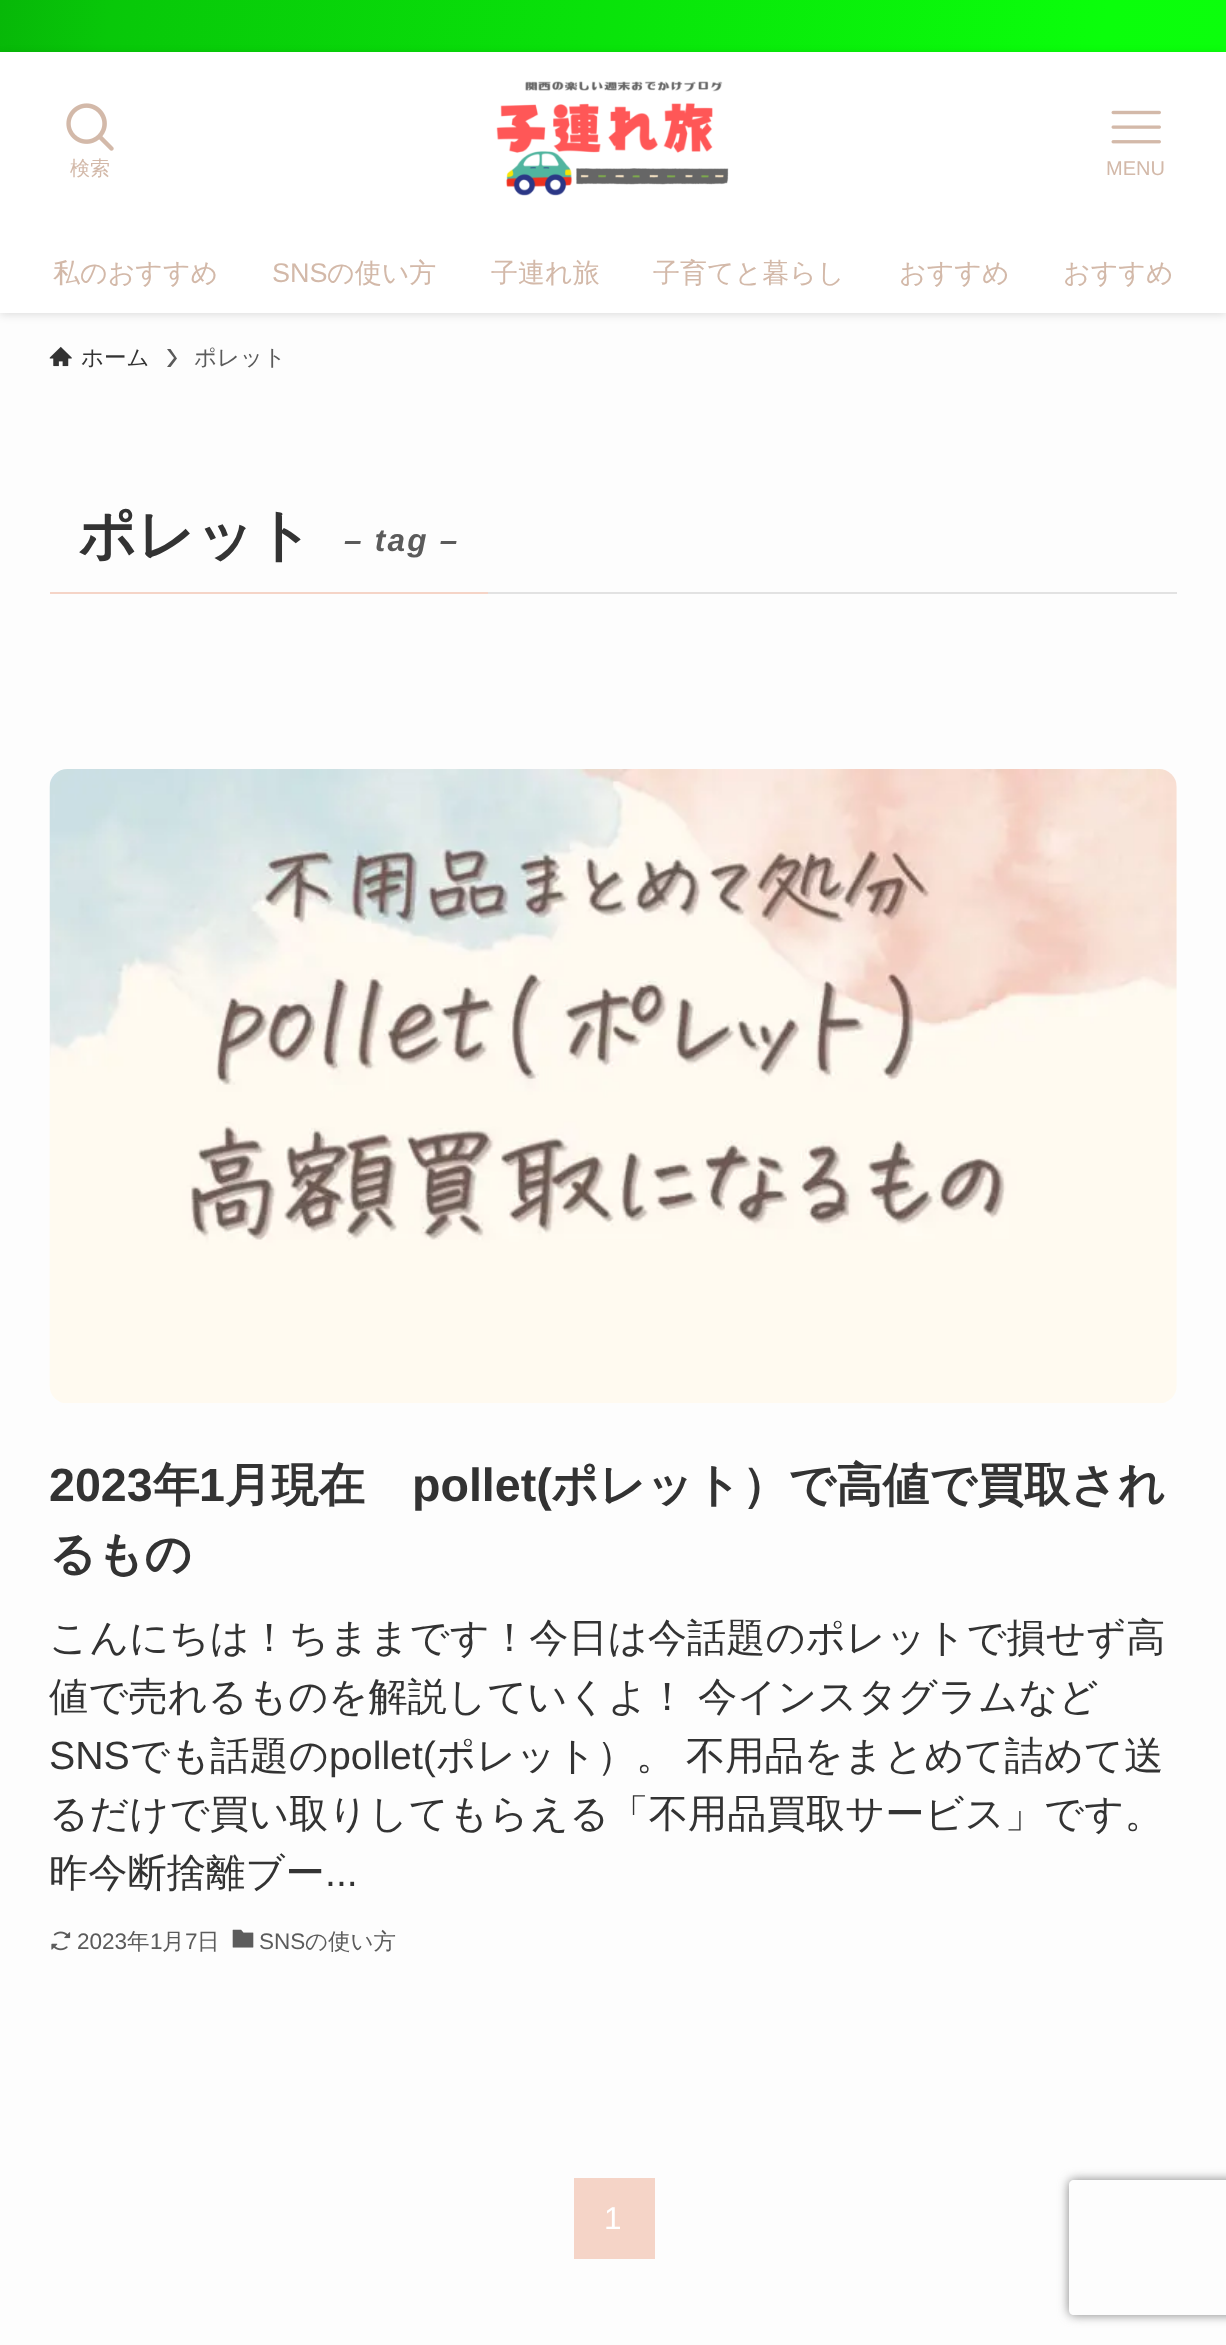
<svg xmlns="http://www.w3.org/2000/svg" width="1226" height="2345">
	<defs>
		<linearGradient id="g1" gradientUnits="userSpaceOnUse" x1="9" y1="-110" x2="1217" y2="103"><stop offset="0" stop-color="#07B608" /><stop offset="0.1" stop-color="#08C809" /><stop offset="0.9" stop-color="#0AFF0B" /><stop offset="1" stop-color="#0BFF0C" /></linearGradient>
		<clipPath id="clip1"><path d="M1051 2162H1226V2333H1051ZM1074 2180H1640C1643 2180 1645 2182 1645 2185V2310C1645 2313 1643 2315 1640 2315H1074C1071 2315 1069 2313 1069 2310V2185C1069 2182 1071 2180 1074 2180Z" clip-rule="evenodd" /></clipPath>
	</defs>
	<rect width="100%" height="100%" fill="#FDFDFD" />
	<rect x="0" y="0" width="1226" height="52" fill="url(#g1)" />
	<rect x="0" y="54" width="1226" height="261" fill="#000000" fill-opacity="0.12" filter="blur(4.5px)" />
	<rect x="0" y="52" width="1226" height="261" fill="#FFFFFF" />
	<image x="66" y="103" width="48" height="48" href="assets/img1.png" />
	<text x="70" y="175" font-family="WenQuanYi Zen Hei" font-size="20" font-weight="500" fill="#D3B9A9">検索</text>
	<image x="496" y="81" width="233" height="115" href="assets/img2.png" />
	<image x="1111" y="110" width="50" height="34" href="assets/img3.png" />
	<text x="1106" y="175" font-family="Liberation Sans" font-size="20" fill="#D3B9A9">MENU</text>
	<text x="53" y="282" font-family="WenQuanYi Zen Hei" font-size="27" font-weight="500" fill="#D3B9A9">私のおすすめ</text>
	<text x="272" y="282" font-family="Liberation Sans" font-size="27" fill="#D3B9A9">SNS</text>
	<g font-family="WenQuanYi Zen Hei" font-size="27" font-weight="500" fill="#D3B9A9">
		<text x="327" y="282">の使い方</text>
		<text x="491" y="282">子連れ旅</text>
		<text x="653" y="282">子育てと暮らし</text>
		<text x="899" y="282">おすすめ</text>
		<text x="1063" y="282">おすすめ</text>
	</g>
	<image x="49" y="346" width="23" height="21" href="assets/img4.png" />
	<text x="81" y="365" font-family="WenQuanYi Zen Hei" font-size="22.5" font-weight="500" fill="#333333">ホーム</text>
	<path d="M170.5 349H167L174 358L167 367H170.5L177 358.5Z" fill="#5B5B5B" />
	<text x="194" y="365" font-family="WenQuanYi Zen Hei" font-size="22.5" font-weight="500" fill="#5B5B5B">ポレット</text>
	<rect x="488" y="592" width="689" height="2" fill="#E2E2E2" />
	<rect x="50" y="592" width="438" height="2" fill="#F5D4C7" />
	<text x="78" y="555" font-family="WenQuanYi Zen Hei" font-size="57.5" font-weight="700" fill="#333333">ポレット</text>
	<text x="344" y="551" font-family="Liberation Sans" font-size="31.5" font-weight="700" font-style="italic" letter-spacing="2.25" fill="#5B5B5B">– tag –</text>
	<image x="49" y="769" width="1128" height="634" href="assets/img5.png" />
	<text x="49" y="1501" font-family="Liberation Sans" font-size="46.6" font-weight="700" fill="#333333">2023</text>
	<text x="153" y="1501" font-family="WenQuanYi Zen Hei" font-size="46.6" font-weight="700" fill="#333333">年</text>
	<text x="199" y="1501" font-family="Liberation Sans" font-size="46.6" font-weight="700" fill="#333333">1</text>
	<text x="225" y="1501" font-family="WenQuanYi Zen Hei" font-size="46.6" font-weight="700" fill="#333333">月現在</text>
	<text x="412" y="1501" font-family="Liberation Sans" font-size="46.6" font-weight="700" fill="#333333">pollet(</text>
	<g font-family="WenQuanYi Zen Hei" font-size="46.6" font-weight="700" fill="#333333">
		<text x="551" y="1501">ポレット）で高値で買取され</text>
		<text x="49" y="1570">るもの</text>
	</g>
	<g font-family="WenQuanYi Zen Hei" font-size="39.25" font-weight="500" fill="#333333">
		<text x="49" y="1651">こんにちは！ちままです！今日は今話題のポレットで損せず高</text>
		<text x="49" y="1710" word-spacing="-1">値で売れるものを解説していくよ！ 今インスタグラムなど</text>
	</g>
	<text x="49" y="1769" font-family="Liberation Sans" font-size="39.25" fill="#333333">SNS</text>
	<text x="130" y="1769" font-family="WenQuanYi Zen Hei" font-size="39.25" font-weight="500" fill="#333333">でも話題の</text>
	<text x="329" y="1769" font-family="Liberation Sans" font-size="39.25" fill="#333333">pollet(</text>
	<g font-family="WenQuanYi Zen Hei" font-size="39.25" font-weight="500" fill="#333333">
		<text x="436" y="1769" word-spacing="-1">ポレット）。 不用品をまとめて詰めて送</text>
		<text x="49" y="1827">るだけで買い取りしてもらえる「不用品買取サービス」です。</text>
		<text x="49" y="1886">昨今断捨離ブー</text>
	</g>
	<text x="325" y="1886" font-family="Liberation Sans" font-size="39.25" fill="#333333">...</text>
	<image x="51" y="1931" width="20" height="20" href="assets/img6.png" />
	<text x="77" y="1949" font-family="Liberation Sans" font-size="22.5" fill="#5B5B5B">2023</text>
	<text x="127" y="1949" font-family="WenQuanYi Zen Hei" font-size="22.5" font-weight="500" fill="#5B5B5B">年</text>
	<text x="150" y="1949" font-family="Liberation Sans" font-size="22.5" fill="#5B5B5B">1</text>
	<text x="162" y="1949" font-family="WenQuanYi Zen Hei" font-size="22.5" font-weight="500" fill="#5B5B5B">月</text>
	<text x="185" y="1949" font-family="Liberation Sans" font-size="22.5" fill="#5B5B5B">7</text>
	<text x="197" y="1949" font-family="WenQuanYi Zen Hei" font-size="22.5" font-weight="500" fill="#5B5B5B">日</text>
	<image x="232" y="1929" width="22" height="19" href="assets/img7.png" />
	<text x="259" y="1949" font-family="Liberation Sans" font-size="22.5" fill="#5B5B5B">SNS</text>
	<text x="305" y="1949" font-family="WenQuanYi Zen Hei" font-size="22.5" font-weight="500" fill="#5B5B5B">の使い方</text>
	<rect x="574" y="2178" width="81" height="81" fill="#F5D4C7" />
	<text x="604" y="2229" font-family="Liberation Sans" font-size="31.5" fill="#FFFFFF">1</text>
	<g clip-path="url(#clip1)">
		<rect x="1069" y="2180" width="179" height="135" rx="5" fill="#808080" filter="blur(5.5px)" />
	</g>
</svg>
